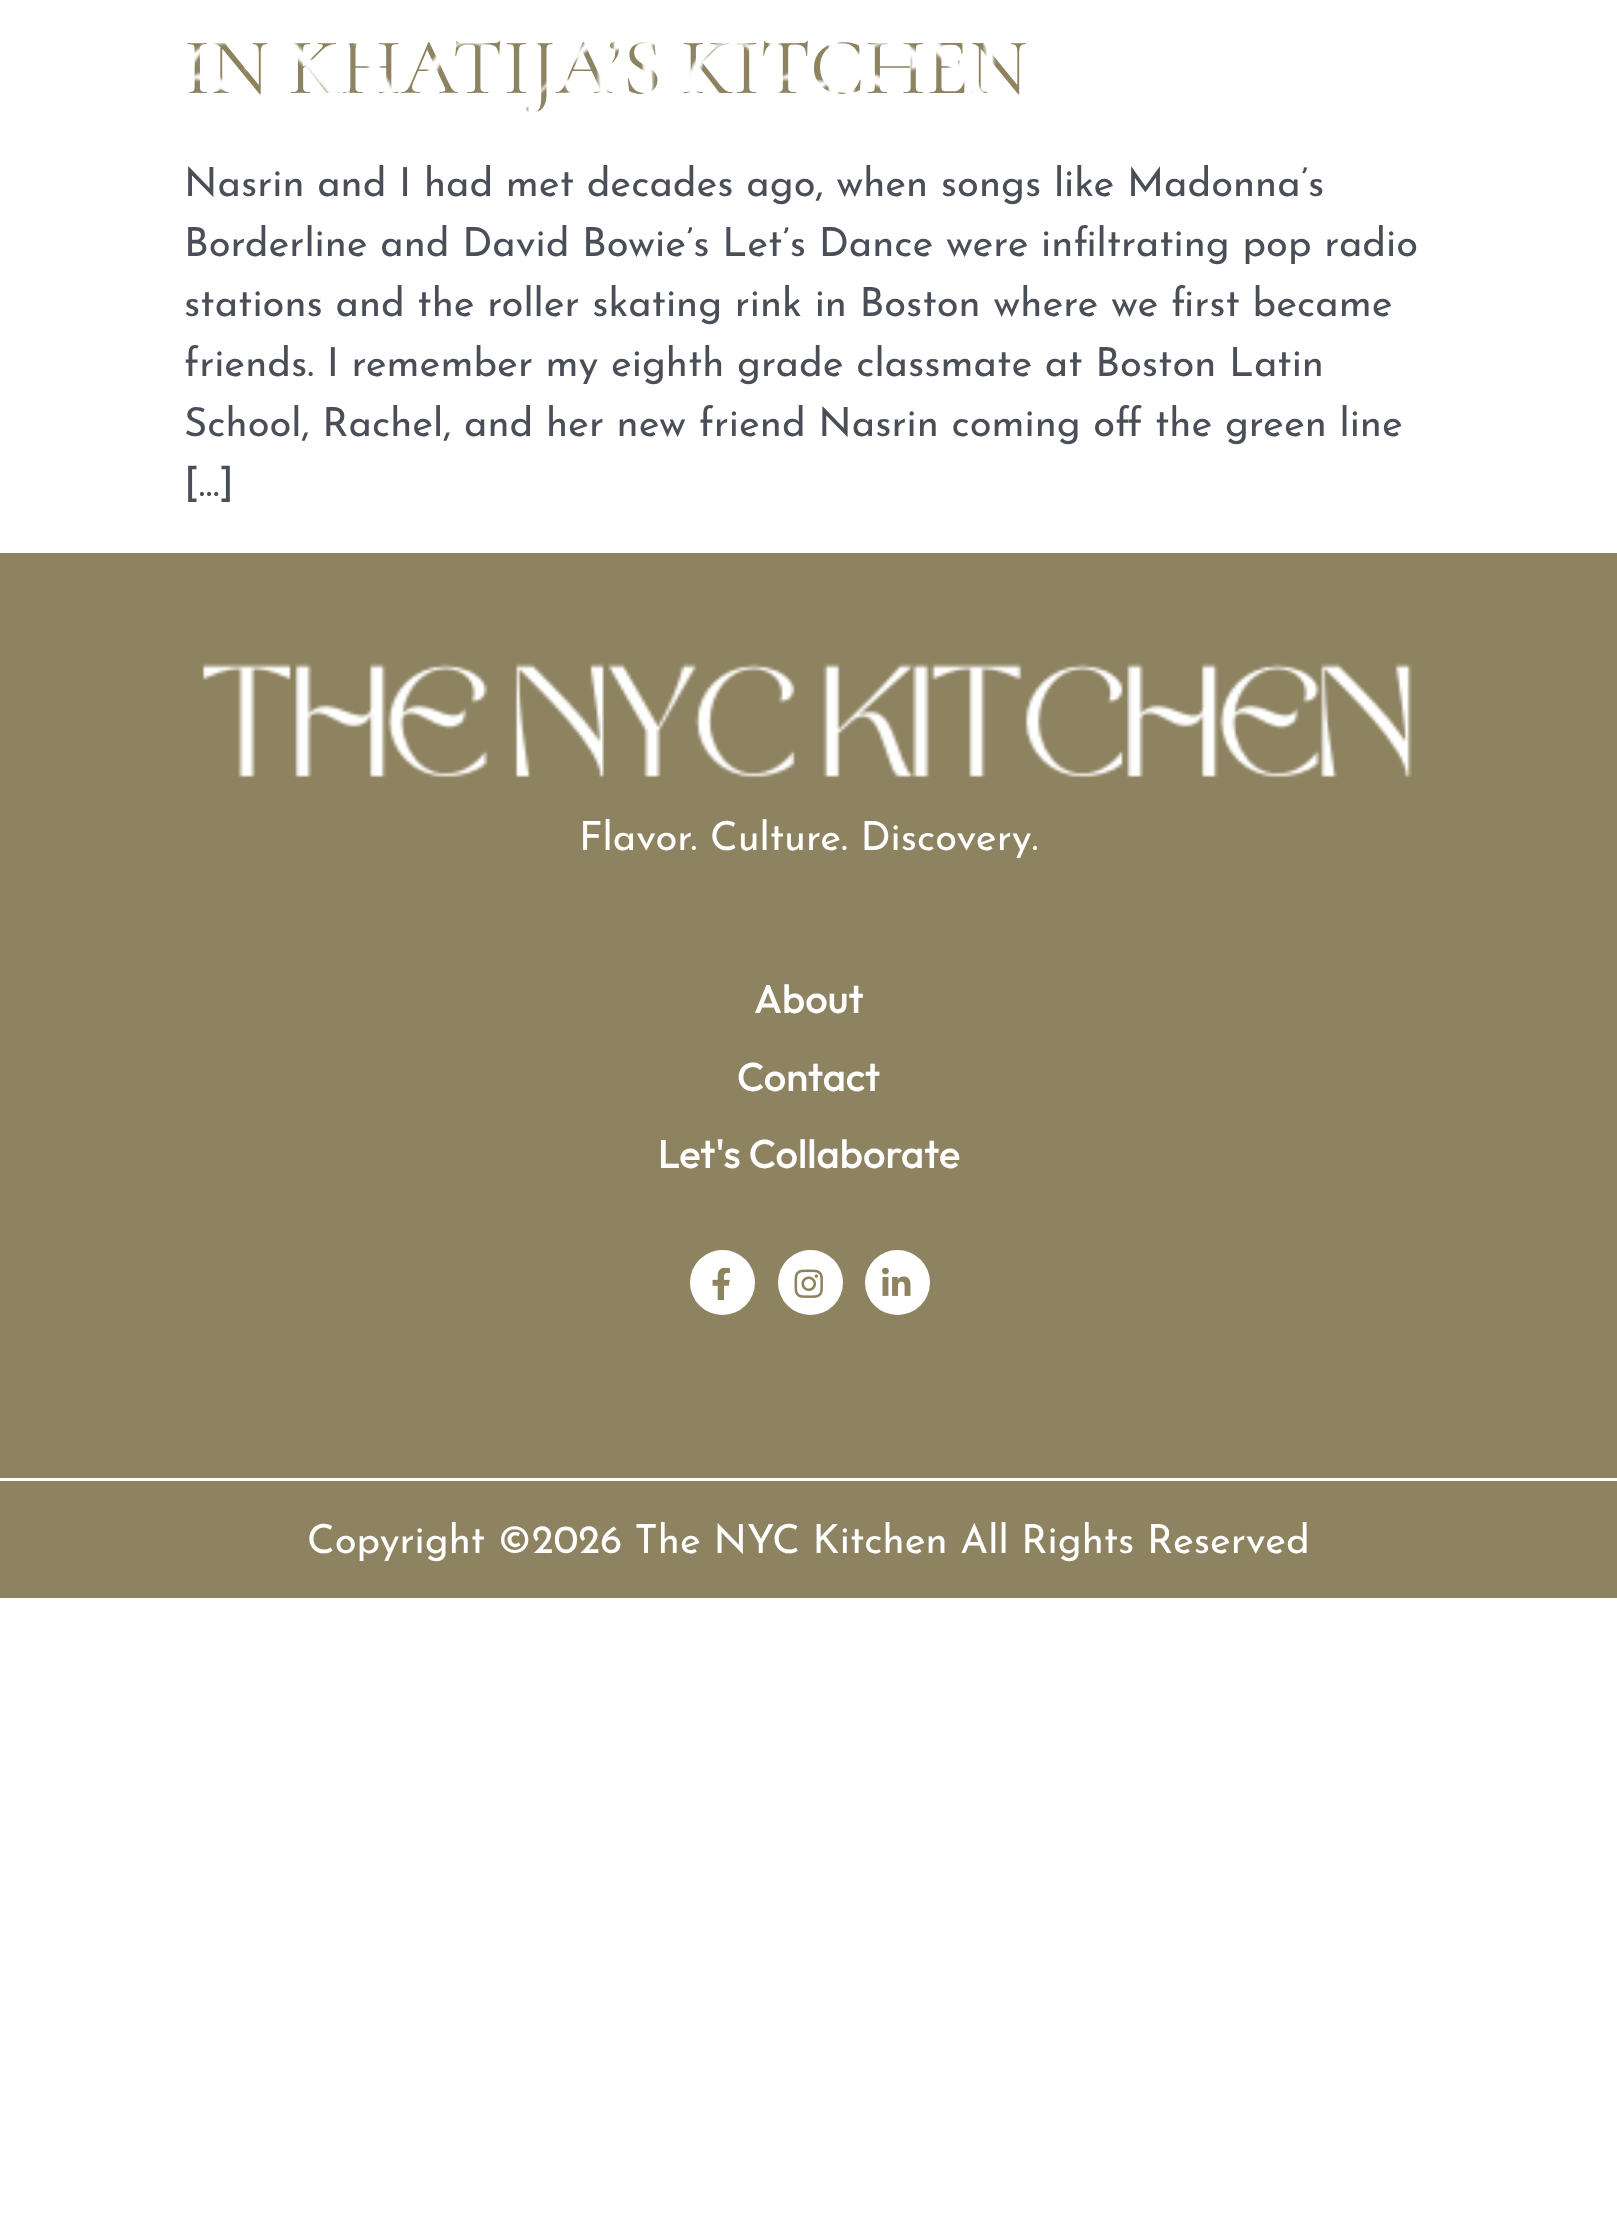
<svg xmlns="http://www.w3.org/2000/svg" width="1617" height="2219">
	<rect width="100%" height="100%" fill="#FFFFFF" />
	<text x="184" y="93" font-family="Cormorant Garamond" font-size="80" letter-spacing="0.25" fill="#8E8361">IN KHATIJA’S KITCHEN</text>
	<g font-family="Josefin Sans" font-size="40" fill="#4A4E57">
		<text x="184" y="196">Nasrin and I had met decades ago, when songs like Madonna’s</text>
		<text x="184" y="256">Borderline and David Bowie’s Let’s Dance were infiltrating pop radio</text>
		<text x="184" y="316">stations and the roller skating rink in Boston where we first became</text>
		<text x="184" y="376">friends. I remember my eighth grade classmate at Boston Latin</text>
		<text x="184" y="436">School, Rachel, and her new friend Nasrin coming off the green line</text>
		<text x="184" y="496">[…]</text>
	</g>
	<image x="187" y="41" width="809" height="72" href="assets/img1.png" />
	<rect x="0" y="553" width="1617" height="925" fill="#8E8361" />
	<image x="202" y="663" width="1210" height="115" href="assets/img2.png" />
	<text x="579" y="850" font-family="Josefin Sans" font-size="40" fill="#FFFFFF">Flavor. Culture. Discovery.</text>
	<g font-family="Outfit" font-size="40" font-weight="500" fill="#FFFFFF">
		<text x="754" y="1013">About</text>
		<text x="737" y="1091">Contact</text>
		<text x="658" y="1168">Let's Collaborate</text>
	</g>
	<circle cx="722.5" cy="1282.5" r="32.5" fill="#FFFFFF" />
	<image x="712" y="1268" width="18" height="32" href="assets/img3.png" />
	<circle cx="810.5" cy="1282.5" r="32.5" fill="#FFFFFF" />
	<image x="794" y="1269" width="29" height="29" href="assets/img4.png" />
	<circle cx="897.5" cy="1282.5" r="32.5" fill="#FFFFFF" />
	<image x="882" y="1268" width="29" height="28" href="assets/img5.png" />
	<rect x="0" y="1481" width="1617" height="117" fill="#8E8361" />
	<text x="307" y="1553" font-family="Josefin Sans" font-size="40" fill="#FFFFFF">Copyright ©2026 The NYC Kitchen All Rights Reserved</text>
</svg>
